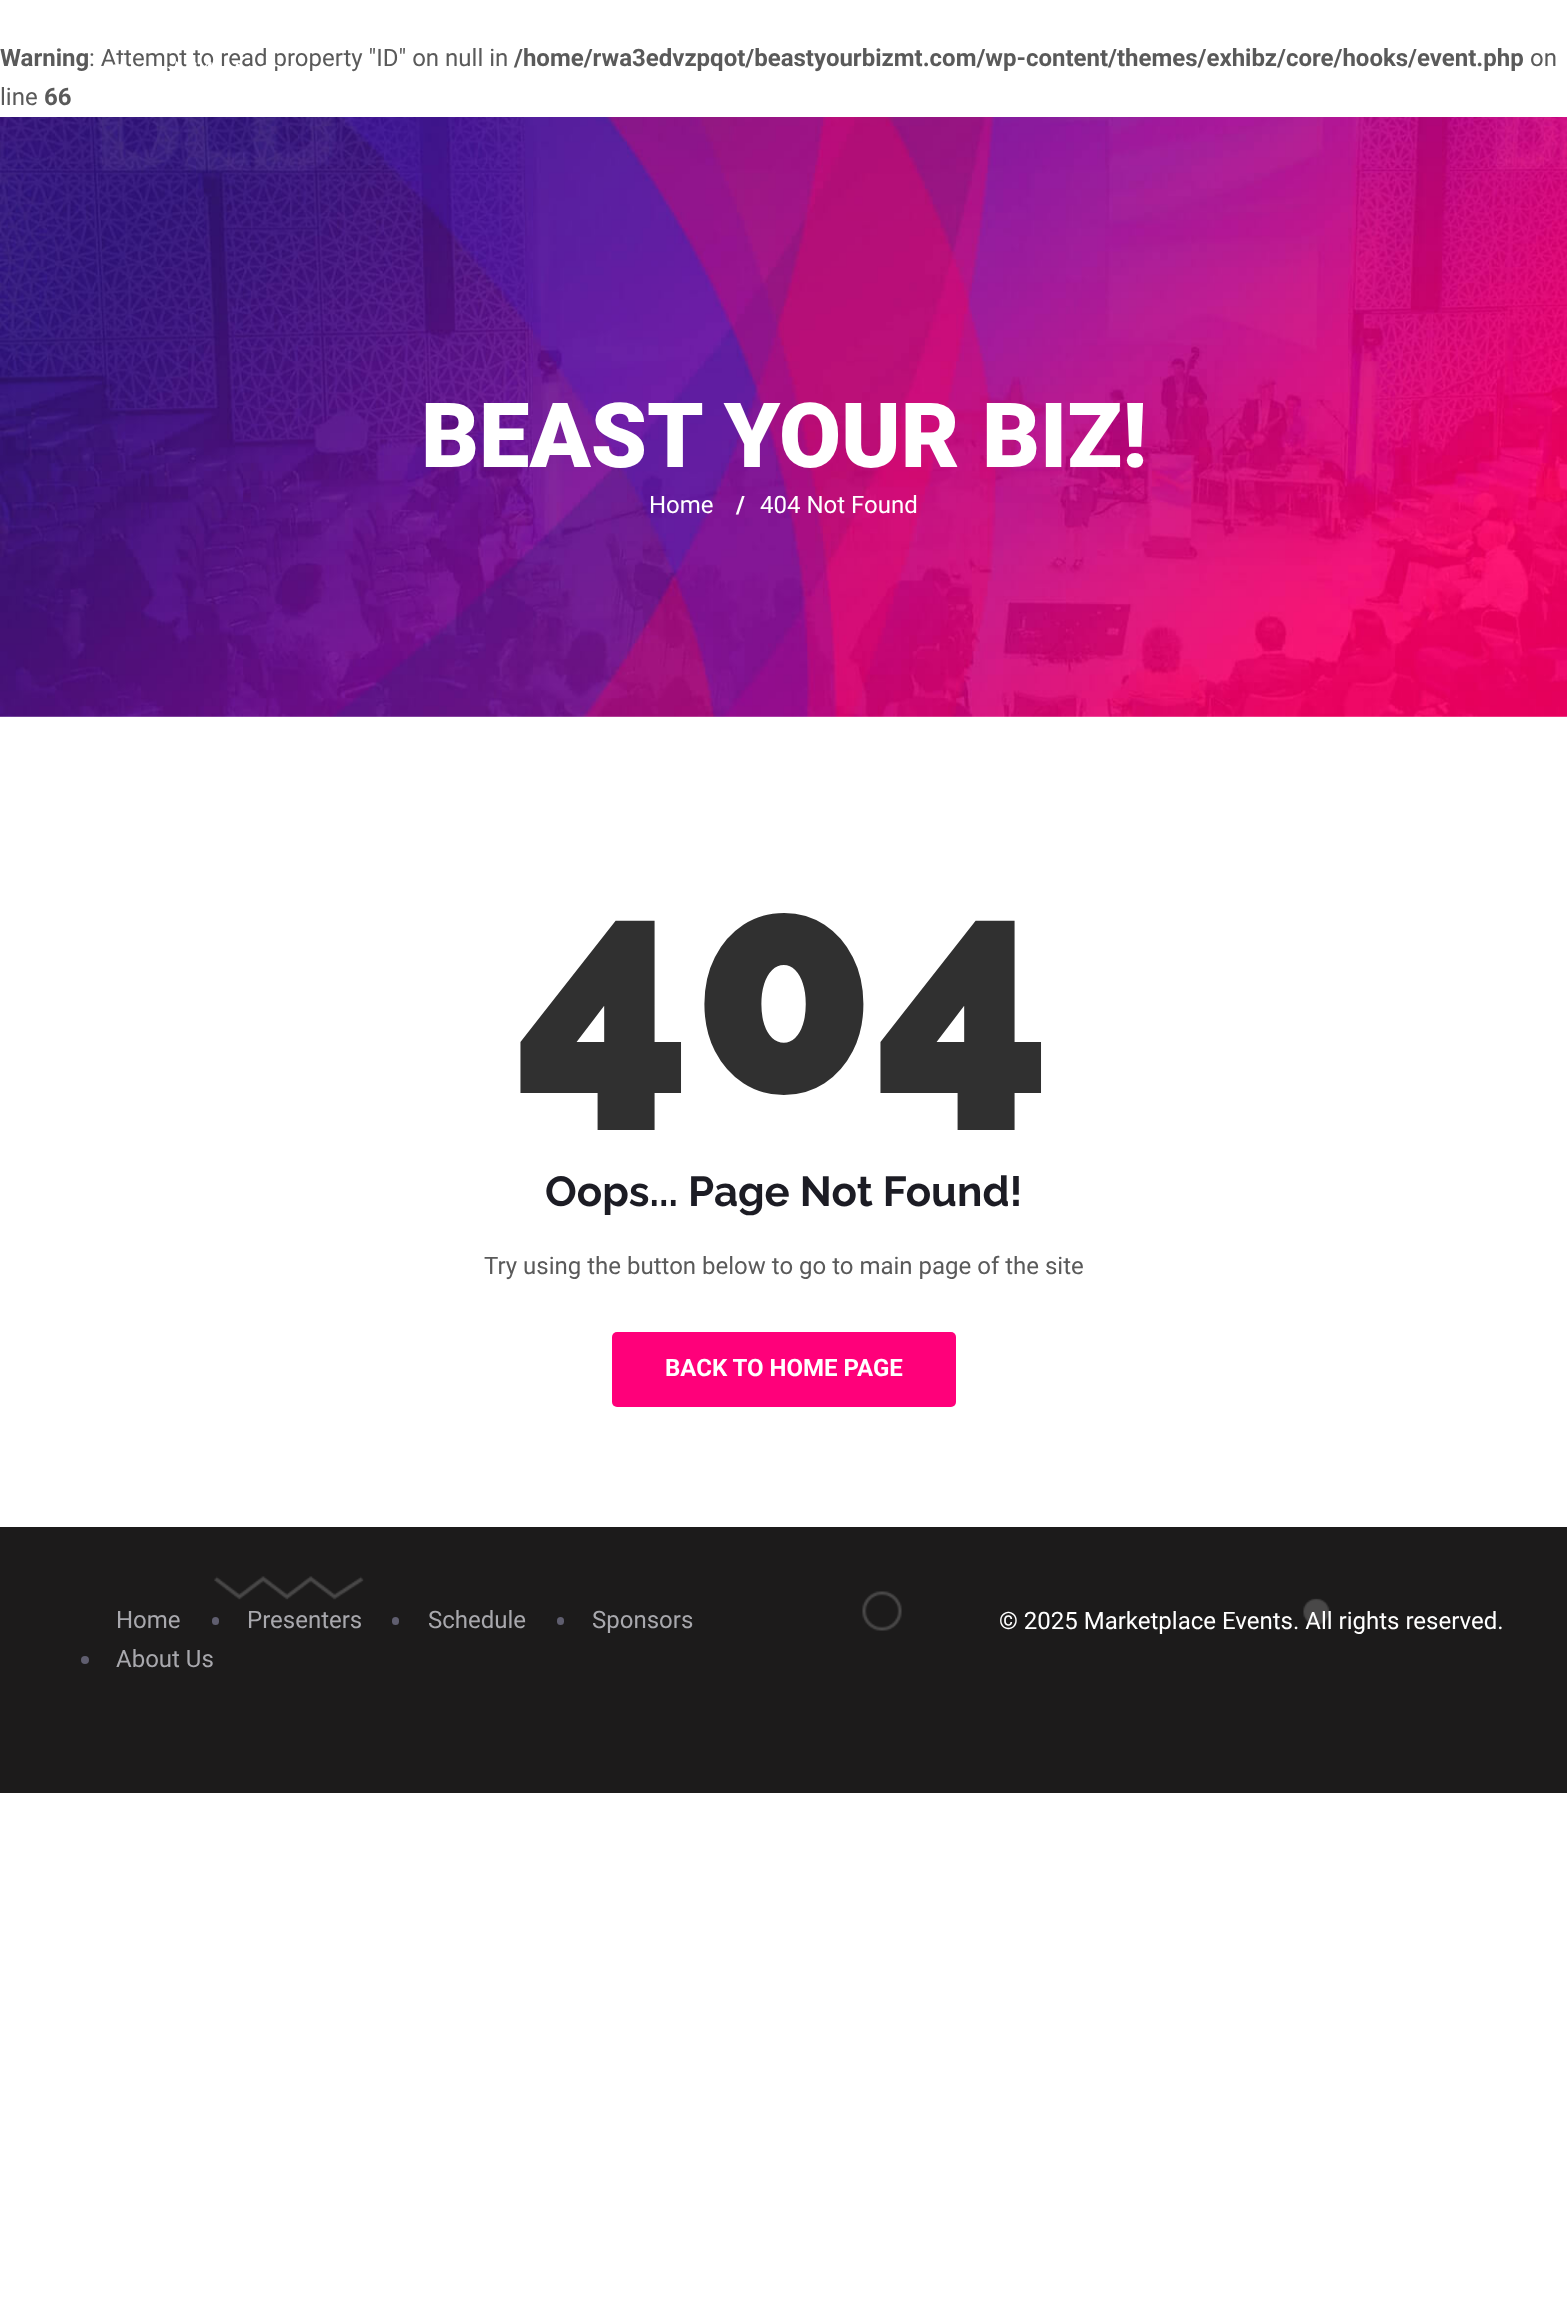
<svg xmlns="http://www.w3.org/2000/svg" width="1567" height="2309">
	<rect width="100%" height="100%" fill="#FFFFFF" />
	<text x="0" y="66" font-family="Roboto" font-size="24" font-weight="700" fill="#5A5A5A">Warning</text>
	<text x="89" y="66" font-family="Roboto" font-size="24" fill="#5A5A5A">: Attempt to read property "ID" on null in</text>
	<text x="514" y="66" font-family="Roboto" font-size="24" font-weight="700" fill="#5A5A5A">/home/rwa3edvzpqot/beastyourbizmt.com/wp-content/themes/exhibz/core/hooks/event.php</text>
	<text x="1530" y="66" font-family="Roboto" font-size="24" fill="#5A5A5A">on</text>
	<image x="113" y="61" width="178" height="8" href="assets/img1.png" />
	<text x="0" y="105" font-family="Roboto" font-size="24" fill="#5A5A5A">line</text>
	<text x="44" y="105" font-family="Roboto" font-size="24" font-weight="700" fill="#5A5A5A">66</text>
	<image x="0" y="117" width="1567" height="600" href="assets/img2.png" />
	<text x="421" y="467" font-family="Roboto" font-size="90" font-weight="900" fill="#FFFFFF">BEAST YOUR BIZ!</text>
	<text x="649" y="513" font-family="Roboto" font-size="24" fill="#FFFFFF">Home</text>
	<text x="736" y="513" font-family="Roboto" font-size="24" font-weight="700" fill="#FFFFFF">/</text>
	<text x="760" y="513" font-family="Roboto" font-size="24" fill="#FFFFFF">404 Not Found</text>
	<text x="516" y="1092" font-family="Raleway" font-size="300" font-weight="900" fill="#303030">404</text>
	<text x="545" y="1206" font-family="Raleway" font-size="42" font-weight="700" fill="#1C1C24">Oops... Page Not Found!</text>
	<text x="484" y="1274" font-family="Roboto" font-size="24" fill="#5A5A5A">Try using the button below to go to main page of the site</text>
	<rect x="612" y="1332" width="344" height="75" rx="5" fill="#FF007A" />
	<text x="665" y="1376" font-family="Roboto" font-size="24" font-weight="700" fill="#FFFFFF">BACK TO HOME PAGE</text>
	<rect x="0" y="1527" width="1567" height="266" fill="#1C1B1B" />
	<image x="214" y="1576" width="1116" height="55" href="assets/img3.png" />
	<text x="116" y="1628" font-family="Roboto" font-size="24" fill="#A8A8AD">Home</text>
	<rect x="212" y="1617" width="7" height="8" rx="3.5" fill="#5F5E6F" />
	<text x="247" y="1628" font-family="Roboto" font-size="24" fill="#A8A8AD">Presenters</text>
	<rect x="392" y="1617" width="7" height="8" rx="3.5" fill="#5F5E6F" />
	<text x="428" y="1628" font-family="Roboto" font-size="24" fill="#A8A8AD">Schedule</text>
	<rect x="557" y="1617" width="7" height="8" rx="3.5" fill="#5F5E6F" />
	<text x="592" y="1628" font-family="Roboto" font-size="24" fill="#A8A8AD">Sponsors</text>
	<circle cx="85" cy="1660" r="4" fill="#5F5E6F" />
	<text x="116" y="1667" font-family="Roboto" font-size="24" fill="#A8A8AD">About Us</text>
	<text x="999" y="1629" font-family="Roboto" font-size="24" fill="#FFFFFF">© 2025 Marketplace Events. All rights reserved.</text>
</svg>
